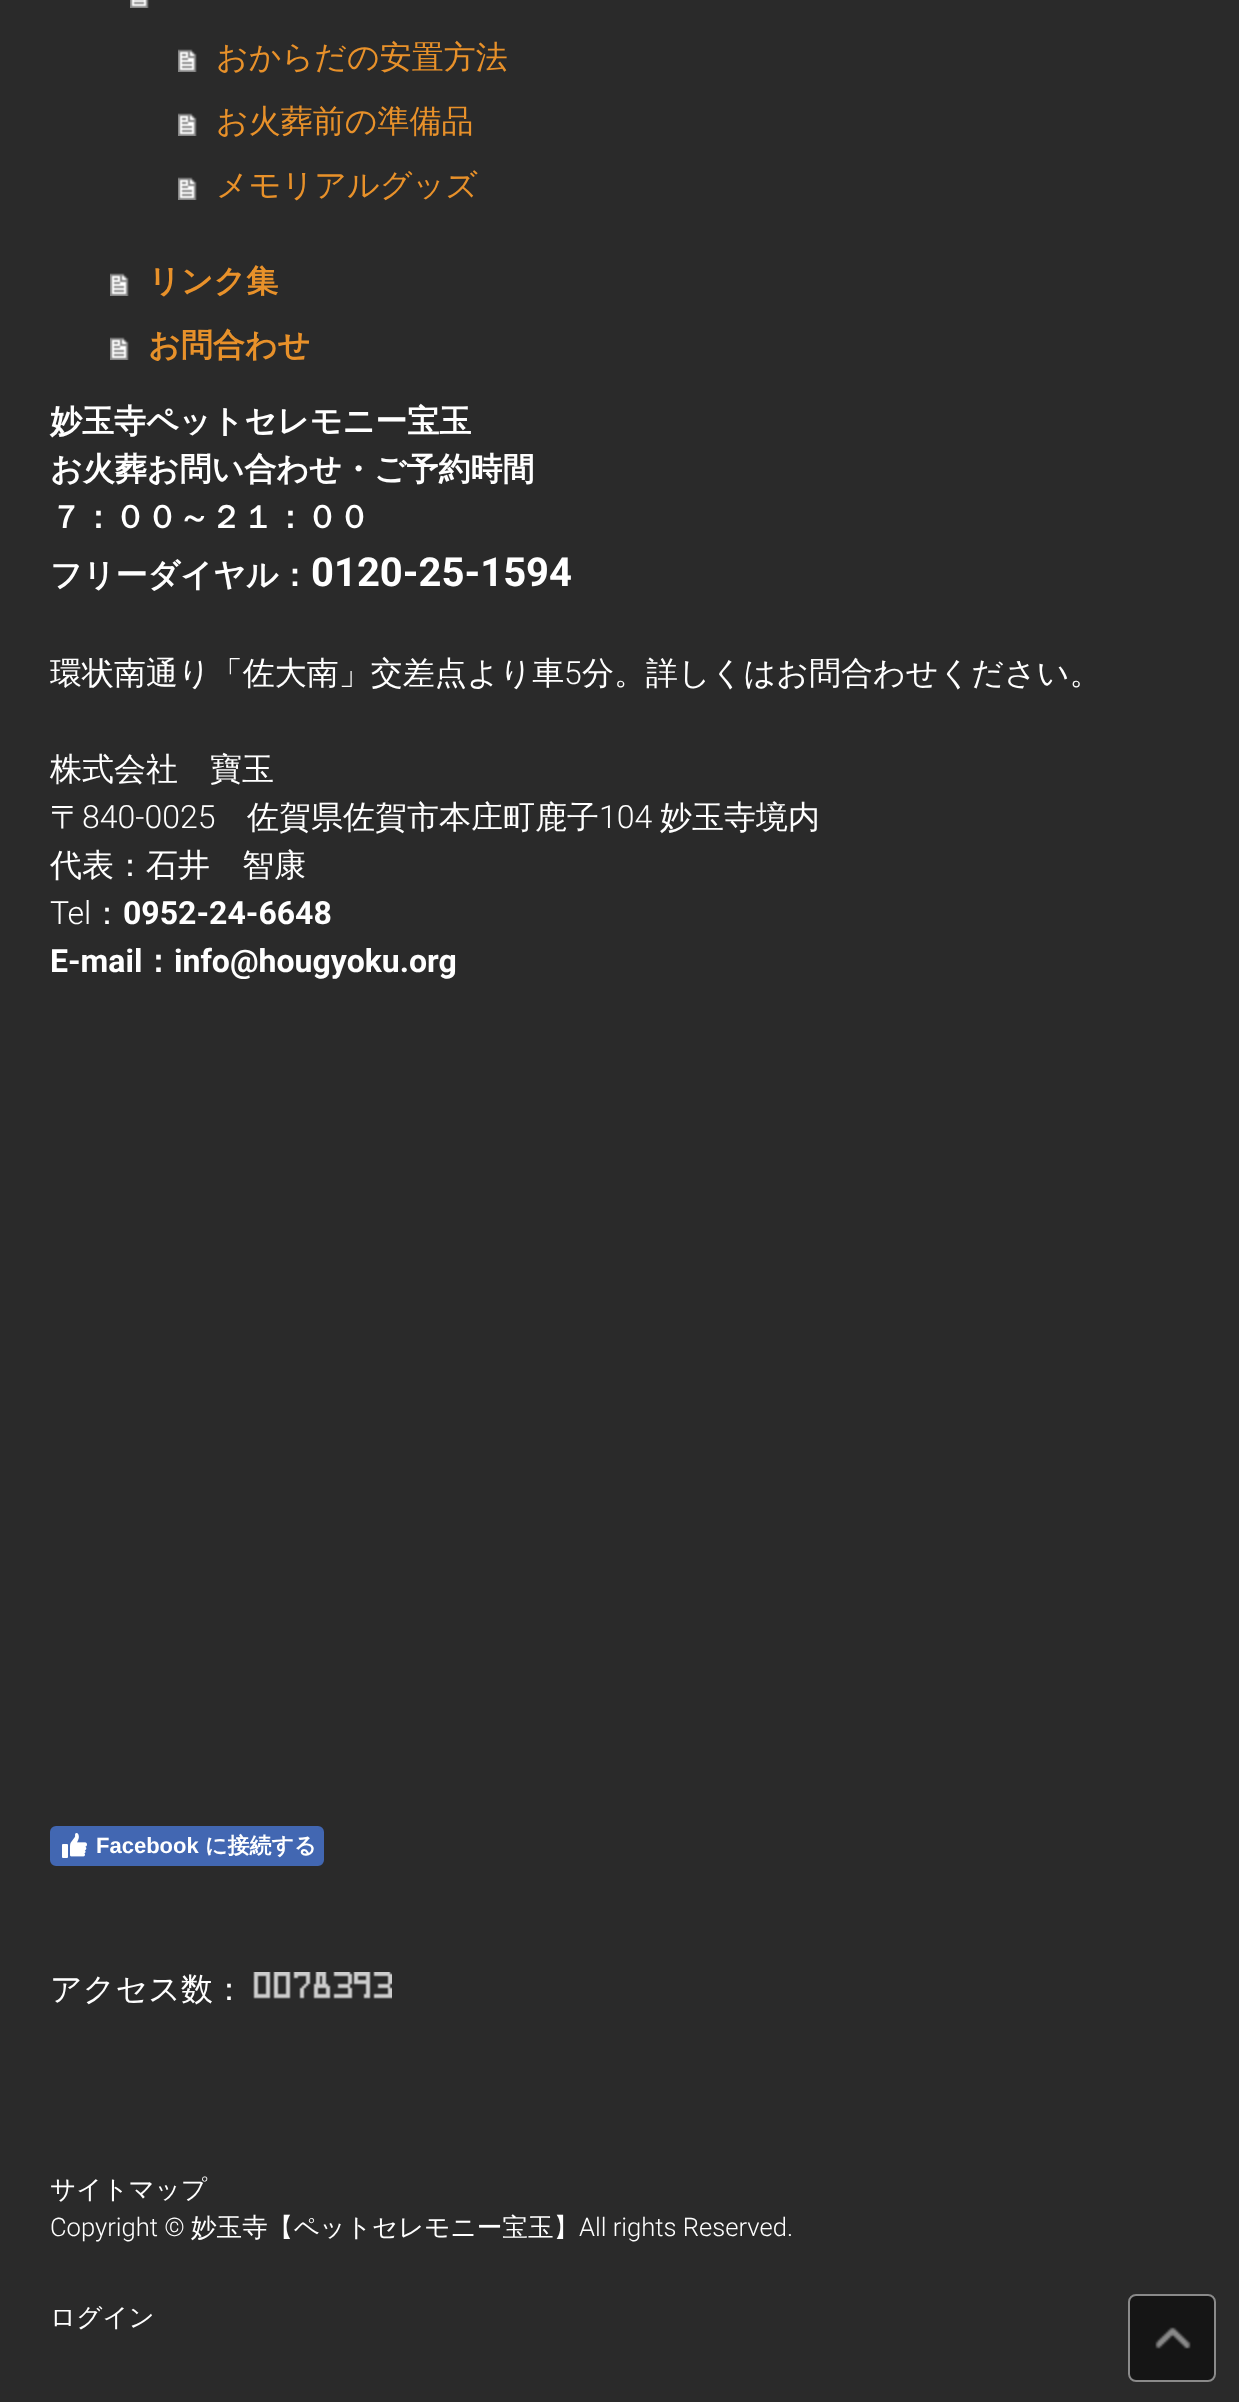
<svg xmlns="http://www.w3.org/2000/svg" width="1239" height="2402">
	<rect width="100%" height="100%" fill="#2A2A2A" />
	<image x="130" y="0" width="19" height="8" href="assets/img1.png" />
	<image x="178" y="49" width="19" height="23" href="assets/img2.png" />
	<text x="216" y="68" font-family="WenQuanYi Zen Hei" font-size="32" font-weight="500" fill="#E8912A">おからだの安置方法</text>
	<image x="178" y="113" width="19" height="23" href="assets/img2.png" />
	<text x="216" y="132" font-family="WenQuanYi Zen Hei" font-size="32" font-weight="500" fill="#E8912A">お火葬前の準備品</text>
	<image x="178" y="177" width="19" height="23" href="assets/img2.png" />
	<text x="216" y="196" font-family="WenQuanYi Zen Hei" font-size="32" font-weight="500" fill="#E8912A">メモリアルグッズ</text>
	<image x="110" y="273" width="19" height="23" href="assets/img2.png" />
	<text x="148" y="292" font-family="WenQuanYi Zen Hei" font-size="32" font-weight="700" fill="#E8912A">リンク集</text>
	<image x="110" y="337" width="19" height="23" href="assets/img2.png" />
	<text x="148" y="356" font-family="WenQuanYi Zen Hei" font-size="32" font-weight="700" fill="#E8912A">お問合わせ</text>
	<g font-family="WenQuanYi Zen Hei" font-size="32" font-weight="700" fill="#FFFFFF">
		<text x="50" y="432">妙玉寺ペットセレモニー宝玉</text>
		<text x="50" y="480">お火葬お問い合わせ・ご予約時間</text>
		<text x="50" y="528">７：００～２１：００</text>
		<text x="50" y="586">フリーダイヤル：</text>
	</g>
	<text x="311" y="586" font-family="Roboto" font-size="40" font-weight="700" fill="#FFFFFF">0120-25-1594</text>
	<text x="50" y="684" font-family="WenQuanYi Zen Hei" font-size="32" font-weight="500" fill="#FFFFFF">環状南通り「佐大南」交差点より車</text>
	<text x="564" y="684" font-family="Roboto" font-size="32" font-weight="300" fill="#FFFFFF">5</text>
	<g font-family="WenQuanYi Zen Hei" font-size="32" font-weight="500" fill="#FFFFFF">
		<text x="582" y="684">分。詳しくはお問合わせください。</text>
		<text x="50" y="780">株式会社　寶玉</text>
		<text x="50" y="828">〒</text>
	</g>
	<text x="82" y="828" font-family="Roboto" font-size="32" font-weight="300" fill="#FFFFFF">840-0025</text>
	<text x="247" y="828" font-family="WenQuanYi Zen Hei" font-size="32" font-weight="500" fill="#FFFFFF">佐賀県佐賀市本庄町鹿子</text>
	<text x="599" y="828" font-family="Roboto" font-size="32" font-weight="300" fill="#FFFFFF">104</text>
	<g font-family="WenQuanYi Zen Hei" font-size="32" font-weight="500" fill="#FFFFFF">
		<text x="660" y="828">妙玉寺境内</text>
		<text x="50" y="876">代表：石井　智康</text>
	</g>
	<text x="50" y="924" font-family="Roboto" font-size="32" font-weight="300" fill="#FFFFFF">Tel</text>
	<text x="91" y="924" font-family="WenQuanYi Zen Hei" font-size="32" font-weight="500" fill="#FFFFFF">：</text>
	<g font-family="Roboto" font-size="32" font-weight="700" fill="#FFFFFF">
		<text x="123" y="924">0952-24-6648</text>
		<text x="50" y="972">E-mail</text>
	</g>
	<text x="142" y="972" font-family="WenQuanYi Zen Hei" font-size="32" font-weight="700" fill="#FFFFFF">：</text>
	<text x="174" y="972" font-family="Roboto" font-size="32" font-weight="700" fill="#FFFFFF">info@hougyoku.org</text>
	<rect x="51" y="1827" width="272" height="38" rx="5" fill="#4267B2" stroke="#4267B2" stroke-width="2" />
	<image x="62" y="1833" width="25" height="25" href="assets/img3.png" />
	<text x="96" y="1853" font-family="Liberation Sans" font-size="22" font-weight="700" fill="#FFFFFF">Facebook</text>
	<text x="205" y="1853" font-family="WenQuanYi Zen Hei" font-size="22" font-weight="700" fill="#FFFFFF">に接続する</text>
	<text x="50" y="2000" font-family="WenQuanYi Zen Hei" font-size="32" font-weight="500" fill="#FFFFFF">アクセス数：</text>
	<image x="253" y="1972" width="139" height="27" href="assets/img4.png" />
	<text x="50" y="2198" font-family="WenQuanYi Zen Hei" font-size="25.6" font-weight="500" fill="#FFFFFF">サイトマップ</text>
	<text x="50" y="2236" font-family="Roboto" font-size="25.6" font-weight="300" fill="#FFFFFF">Copyright ©</text>
	<text x="191" y="2236" font-family="WenQuanYi Zen Hei" font-size="25.6" font-weight="500" fill="#FFFFFF">妙玉寺【ペットセレモニー宝玉】</text>
	<text x="579" y="2236" font-family="Roboto" font-size="25.6" font-weight="300" fill="#FFFFFF">All rights Reserved.</text>
	<text x="50" y="2326" font-family="WenQuanYi Zen Hei" font-size="25.6" font-weight="500" fill="#FFFFFF">ログイン</text>
	<rect x="1128" y="2294" width="88" height="88" rx="8" fill="#151515" />
	<rect x="1129" y="2295" width="86" height="86" rx="7" fill="none" stroke="#FFFFFF" stroke-opacity="0.5" stroke-width="2" />
	<image x="1155" y="2327" width="36" height="22" href="assets/img5.png" />
</svg>
